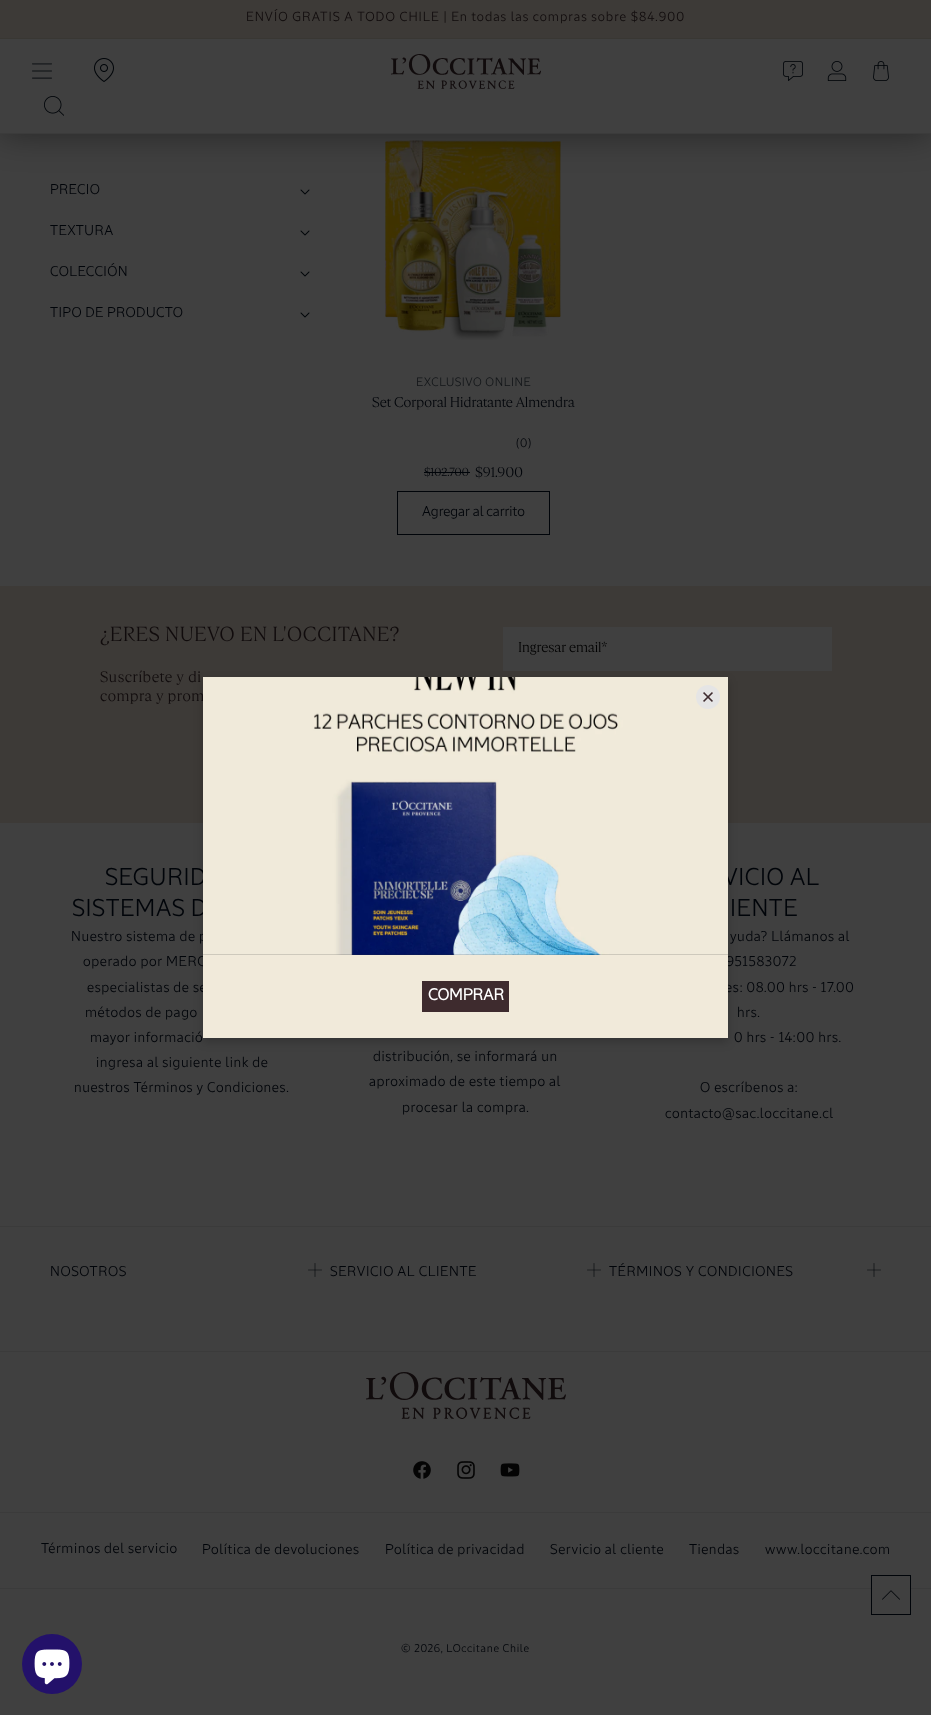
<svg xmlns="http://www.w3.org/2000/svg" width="931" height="1715">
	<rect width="100%" height="100%" fill="#404040" />
	<image x="385" y="140" width="176" height="200" href="assets/img9.png" />
	<rect x="0" y="38" width="931" height="96" fill="#000000" fill-opacity="0.42" filter="blur(17px)" />
	<rect x="0" y="39" width="931" height="94" fill="#404040" />
	<rect x="0" y="133" width="931" height="1" fill="#3B3B3B" />
	<image x="32" y="63" width="20" height="16" href="assets/img1.png" />
	<image x="94" y="58" width="20" height="24" href="assets/img2.png" />
	<image x="391" y="54" width="150" height="35" href="assets/img3.png" />
	<image x="783" y="61" width="20" height="20" href="assets/img4.png" />
	<image x="827" y="61" width="20" height="20" href="assets/img5.png" />
	<image x="873" y="61" width="16" height="20" href="assets/img6.png" />
	<image x="44" y="96" width="20" height="20" href="assets/img7.png" />
	<rect x="0" y="0" width="931" height="38" fill="#3D3A37" />
	<rect x="0" y="38" width="931" height="1" fill="#393733" />
	<text x="246" y="21" font-family="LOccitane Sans" font-size="13" letter-spacing="1" fill="#100B0C">ENVÍO GRATIS A TODO CHILE | En todas las compras sobre $84.900</text>
	<text x="50" y="194" font-family="LOccitane Sans" font-size="14" letter-spacing="0.4" fill="#000409">PRECIO</text>
	<image x="300" y="189" width="10" height="6" href="assets/img8.png" />
	<text x="50" y="235" font-family="LOccitane Sans" font-size="14" letter-spacing="0.4" fill="#000409">TEXTURA</text>
	<image x="300" y="230" width="10" height="6" href="assets/img8.png" />
	<text x="50" y="276" font-family="LOccitane Sans" font-size="14" letter-spacing="0.4" fill="#000409">COLECCIÓN</text>
	<image x="300" y="271" width="10" height="6" href="assets/img8.png" />
	<text x="50" y="317" font-family="LOccitane Sans" font-size="14" letter-spacing="0.4" fill="#000409">TIPO DE PRODUCTO</text>
	<image x="300" y="312" width="10" height="6" href="assets/img8.png" />
	<text x="416" y="386" font-family="LOccitane Sans" font-size="12" letter-spacing="0.6" fill="#121518">EXCLUSIVO ONLINE</text>
	<text x="372" y="407" font-family="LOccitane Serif" font-size="14" fill="#000409">Set Corporal Hidratante Almendra</text>
	<text x="516" y="447" font-family="LOccitane Sans" font-size="12" letter-spacing="0.6" fill="#000409">(0)</text>
	<text x="424" y="476" font-family="LOccitane Serif" font-size="11.5" fill="#000409">$102.700</text>
	<rect x="424" y="472" width="46" height="1" fill="#000409" />
	<text x="475" y="477" font-family="LOccitane Serif" font-size="14" fill="#000409">$91.900</text>
	<rect x="397.5" y="491.5" width="152" height="43" fill="none" stroke="#000409" />
	<text x="422" y="516" font-family="LOccitane Sans" font-size="14" fill="#000409">Agregar al carrito</text>
	<rect x="0" y="586" width="931" height="237" fill="#3D3A37" />
	<text x="100" y="641" font-family="LOccitane Serif" font-size="20" letter-spacing="0.6" fill="#100B0C">¿ERES NUEVO EN L'OCCITANE?</text>
	<g font-family="LOccitane Serif" font-size="15" letter-spacing="0.6" fill="#100B0C">
		<text x="100" y="682">Suscríbete y di</text>
		<text x="100" y="701">compra y prom</text>
	</g>
	<rect x="503" y="627" width="329" height="44" fill="#404040" />
	<text x="518" y="652" font-family="LOccitane Serif" font-size="14" fill="#000000">Ingresar email*</text>
	<g font-family="LOccitane Sans" font-size="24" letter-spacing="0.6" fill="#000409">
		<text x="105" y="885">SEGURID</text>
		<text x="72" y="916">SISTEMAS D</text>
	</g>
	<g font-family="LOccitane Sans" font-size="14" letter-spacing="0.6" fill="#000409">
		<text x="71" y="941">Nuestro sistema de p</text>
		<text x="83" y="966">operado por MERC</text>
		<text x="87" y="992">especialistas de se</text>
		<text x="85" y="1017">métodos de pago</text>
		<text x="90" y="1042">mayor informació</text>
		<text x="96" y="1067">ingresa al siguiente link de</text>
		<text x="74" y="1092">nuestros Términos y Condiciones.</text>
		<text x="373" y="1061">distribución, se informará un</text>
		<text x="369" y="1086">aproximado de este tiempo al</text>
		<text x="402" y="1112">procesar la compra.</text>
	</g>
	<g font-family="LOccitane Sans" font-size="24" letter-spacing="0.6" fill="#000409">
		<text x="723" y="885">VICIO AL</text>
		<text x="730" y="916">IENTE</text>
	</g>
	<g font-family="LOccitane Sans" font-size="14" letter-spacing="0.6" fill="#000409">
		<text x="730" y="941">yuda? Llámanos al</text>
		<text x="726" y="966">951583072</text>
		<text x="725" y="992">es: 08.00 hrs - 17.00</text>
		<text x="737" y="1017">hrs.</text>
		<text x="734" y="1042">0 hrs - 14:00 hrs.</text>
		<text x="700" y="1092">O escríbenos a:</text>
		<text x="665" y="1118">contacto@sac.loccitane.cl</text>
	</g>
	<rect x="203" y="681" width="525" height="361" fill="#000000" fill-opacity="0.2" filter="blur(5px)" />
	<image x="203" y="677" width="525" height="278" href="assets/img11.png" />
	<circle cx="708" cy="697" r="12" fill="#E5E5E5" />
	<image x="703" y="692" width="10" height="10" href="assets/img10.png" />
	<rect x="203" y="955" width="525" height="83" fill="#F1EADA" />
	<rect x="422" y="981" width="87" height="31" fill="#3E2B2E" />
	<text x="428" y="1000" font-family="LOccitane Sans" font-size="16" font-weight="700" fill="#FFFFFF">COMPRAR</text>
	<rect x="0" y="1226" width="931" height="1" fill="#3B3B3B" />
	<text x="50" y="1276" font-family="LOccitane Sans" font-size="14" letter-spacing="0.6" fill="#000409">NOSOTROS</text>
	<image x="308" y="1263" width="14" height="14" href="assets/img12.png" />
	<text x="330" y="1276" font-family="LOccitane Sans" font-size="14" letter-spacing="0.6" fill="#000409">SERVICIO AL CLIENTE</text>
	<image x="587" y="1263" width="14" height="14" href="assets/img12.png" />
	<text x="609" y="1276" font-family="LOccitane Sans" font-size="14" letter-spacing="0.6" fill="#000409">TÉRMINOS Y CONDICIONES</text>
	<image x="867" y="1263" width="14" height="14" href="assets/img12.png" />
	<rect x="0" y="1351" width="931" height="1" fill="#3B3B3B" />
	<image x="366" y="1372" width="200" height="47" href="assets/img13.png" />
	<image x="413" y="1461" width="18" height="18" href="assets/img14.png" />
	<image x="457" y="1461" width="18" height="18" href="assets/img15.png" />
	<image x="500" y="1463" width="20" height="14" href="assets/img16.png" />
	<rect x="0" y="1512" width="931" height="1" fill="#3B3B3B" />
	<g font-family="LOccitane Sans" font-size="14" letter-spacing="0.6" fill="#000409">
		<text x="41" y="1553">Términos del servicio</text>
		<text x="202" y="1554">Política de devoluciones</text>
		<text x="385" y="1554">Política de privacidad</text>
		<text x="550" y="1554">Servicio al cliente</text>
		<text x="689" y="1554">Tiendas</text>
		<text x="765" y="1554">www.loccitane.com</text>
	</g>
	<rect x="0" y="1588" width="931" height="1" fill="#3B3B3B" />
	<text x="401" y="1652" font-family="LOccitane Sans" font-size="11" letter-spacing="0.7" fill="#000409">© 2026, LOccitane Chile</text>
	<rect x="872" y="1588" width="38" height="1" fill="#40403F" />
	<rect x="871.5" y="1575.5" width="39" height="39" fill="none" stroke="#000409" />
	<image x="882" y="1590" width="18" height="10" href="assets/img17.png" />
	<circle cx="52" cy="1664" r="30" fill="#23116A" />
	<image x="34" y="1649" width="36" height="36" href="assets/img18.png" />
</svg>
